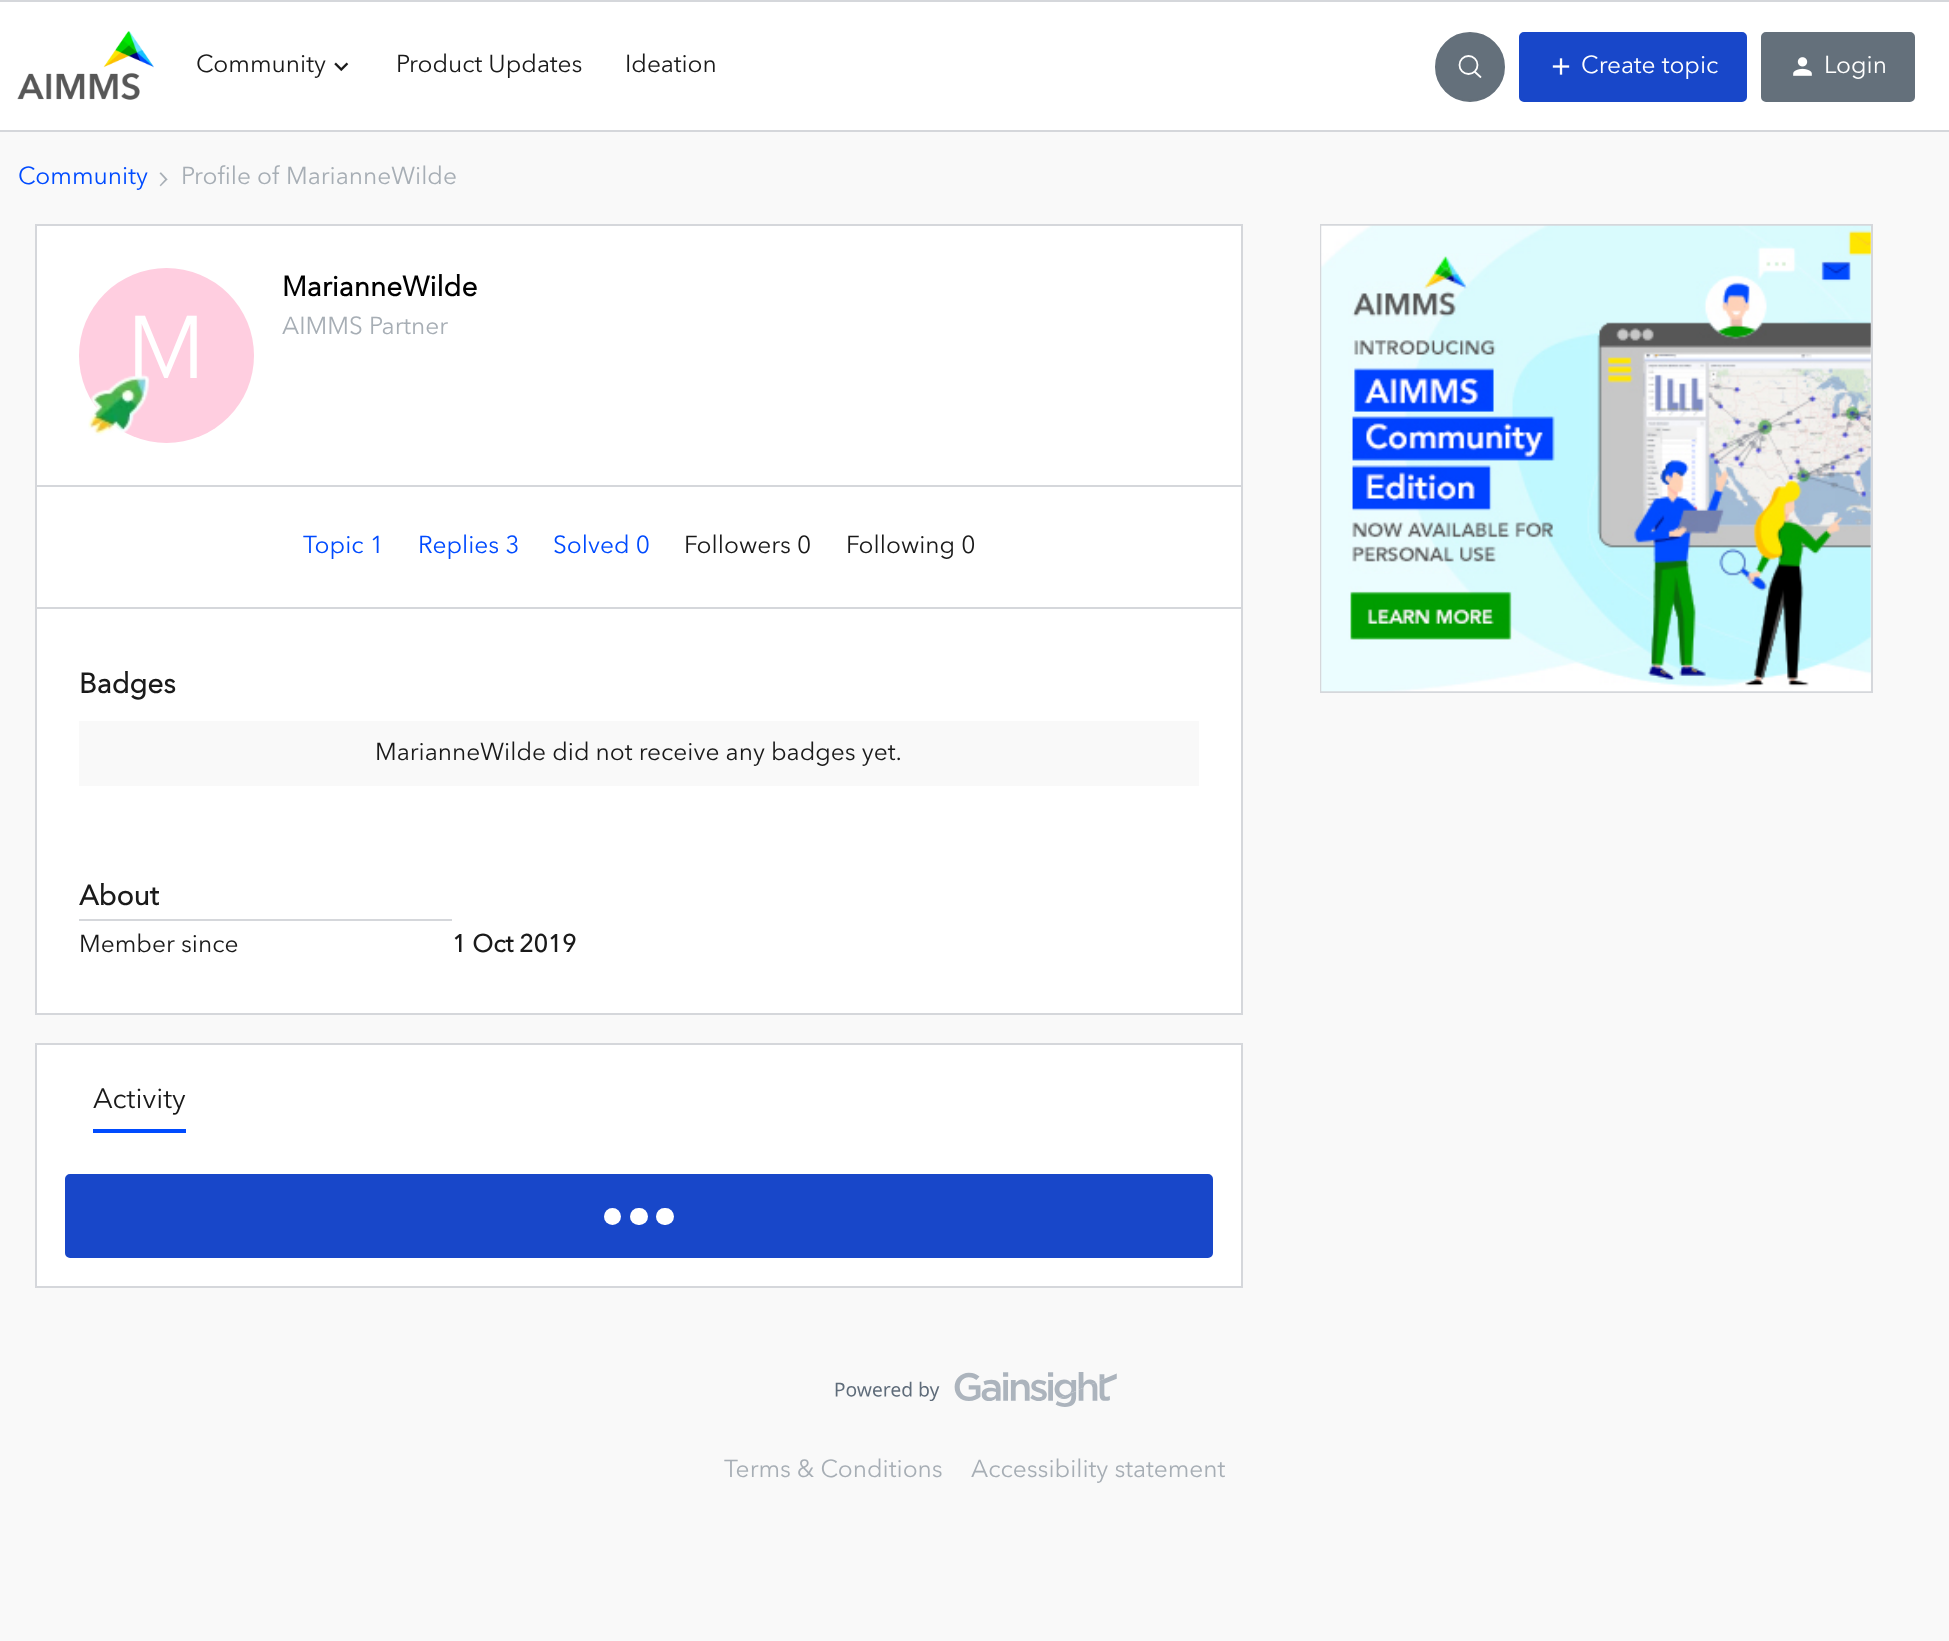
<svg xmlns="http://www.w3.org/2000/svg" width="1949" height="1641">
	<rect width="100%" height="100%" fill="#F9F9F9" />
	<rect x="0" y="2" width="1949" height="128" fill="#FFFFFF" />
	<rect x="0" y="0" width="1949" height="2" fill="#D5D7DB" />
	<rect x="0" y="130" width="1949" height="2" fill="#D5D7DB" />
	<image x="17" y="31" width="137" height="69" href="assets/img1.png" />
	<text x="196" y="72" font-family="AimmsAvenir" font-size="24.5" fill="#1A1A1A">Community</text>
	<image x="334" y="62" width="15" height="10" href="assets/img2.png" />
	<g font-family="AimmsAvenir" font-size="24.5" fill="#1A1A1A">
		<text x="396" y="72">Product Updates</text>
		<text x="625" y="72">Ideation</text>
	</g>
	<circle cx="1470" cy="67" r="34" fill="#64707B" stroke="#64707B" stroke-width="2" />
	<circle cx="1468.5" cy="65" r="9" fill="none" stroke="#FFFFFF" stroke-width="1.8" />
	<path d="M1475 72L1480.5 77" fill="none" stroke="#FFFFFF" stroke-width="1.8" stroke-linecap="round" />
	<rect x="1520" y="33" width="226" height="68" rx="4" fill="#1847C9" stroke="#1847C9" stroke-width="2" />
	<image x="1552" y="58" width="18" height="17" href="assets/img3.png" />
	<text x="1581" y="73" font-family="AimmsAvenir" font-size="24.5" fill="#FFFFFF">Create topic</text>
	<rect x="1762" y="33" width="152" height="68" rx="4" fill="#64707B" stroke="#64707B" stroke-width="2" />
	<image x="1793" y="57" width="19" height="19" href="assets/img4.png" />
	<text x="1824" y="73" font-family="AimmsAvenir" font-size="24.5" fill="#FFFFFF">Login</text>
	<text x="18" y="184" font-family="AimmsAvenir" font-size="24.5" fill="#004BFF">Community</text>
	<image x="159" y="172" width="9" height="15" href="assets/img5.png" />
	<text x="181" y="184" font-family="AimmsAvenir" font-size="24.5" fill="#A7AEB5">Profile of MarianneWilde</text>
	<rect x="36" y="225" width="1206" height="261" fill="#FFFFFF" stroke="#D5D7DB" stroke-width="2" />
	<text x="282" y="296" font-family="AimmsAvenir" font-size="28" font-weight="700" fill="#000000">MarianneWilde</text>
	<text x="282" y="334" font-family="AimmsAvenir" font-size="24.5" fill="#A7AEB5">AIMMS Partner</text>
	<circle cx="166.5" cy="355.5" r="87.5" fill="#FFCEE0" />
	<text x="127" y="378" font-family="AimmsAvenir" font-size="88" fill="#FFFFFF">M</text>
	<image x="88" y="374" width="62" height="62" href="assets/img6.png" />
	<rect x="37" y="487" width="1204" height="120" fill="#FFFFFF" />
	<rect x="1241" y="487" width="2" height="528" fill="#D5D7DB" />
	<rect x="35" y="607" width="1208" height="2" fill="#D5D7DB" />
	<rect x="35" y="487" width="2" height="122" fill="#D5D7DB" />
	<g font-family="AimmsAvenir" font-size="24.5" fill="#004BFF">
		<text x="303" y="553">Topic 1</text>
		<text x="418" y="553">Replies 3</text>
		<text x="553" y="553">Solved 0</text>
	</g>
	<g font-family="AimmsAvenir" font-size="24.5" fill="#1A1A1A">
		<text x="684" y="553">Followers 0</text>
		<text x="846" y="553">Following 0</text>
	</g>
	<rect x="37" y="609" width="1204" height="404" fill="#FFFFFF" />
	<rect x="35" y="609" width="2" height="219" fill="#D5D7DB" />
	<text x="79" y="693" font-family="AimmsAvenir" font-size="28" font-weight="700" fill="#1A1A1A">Badges</text>
	<rect x="79" y="721" width="1120" height="65" fill="#F9F9F9" />
	<text x="375" y="760" font-family="AimmsAvenir" font-size="24.5" fill="#1A1A1A">MarianneWilde did not receive any badges yet.</text>
	<rect x="35" y="1013" width="1208" height="2" fill="#D5D7DB" />
	<rect x="35" y="828" width="2" height="187" fill="#D5D7DB" />
	<rect x="79" y="919" width="373" height="2" fill="#D5D7DB" />
	<text x="79" y="905" font-family="AimmsAvenir" font-size="28" font-weight="700" fill="#1A1A1A">About</text>
	<text x="79" y="952" font-family="AimmsAvenir" font-size="24.5" fill="#1A1A1A">Member since</text>
	<text x="452" y="952" font-family="AimmsAvenir" font-size="24.5" font-weight="700" fill="#1A1A1A">1 Oct 2019</text>
	<rect x="36" y="1044" width="1206" height="243" fill="#FFFFFF" stroke="#D5D7DB" stroke-width="2" />
	<rect x="93" y="1129" width="93" height="4" fill="#004BFF" />
	<text x="93" y="1108" font-family="AimmsAvenir" font-size="28" fill="#1A1A1A">Activity</text>
	<rect x="66" y="1175" width="1146" height="82" rx="4" fill="#1847C9" stroke="#1847C9" stroke-width="2" />
	<rect x="630" y="1208" width="18" height="17" rx="8.5" fill="#FFFFFF" />
	<circle cx="612.5" cy="1216.5" r="8.5" fill="#FFFFFF" />
	<rect x="656" y="1208" width="18" height="17" rx="8.5" fill="#FFFFFF" />
	<rect x="1321" y="225" width="551" height="467" fill="none" stroke="#D5D7DB" stroke-width="2" />
	<image x="1321" y="225" width="550" height="467" href="assets/img7.png" />
	<image x="835" y="1372" width="282" height="35" href="assets/img8.png" />
	<g font-family="AimmsAvenir" font-size="24.5" fill="#A7AEB5">
		<text x="724" y="1477">Terms &amp; Conditions</text>
		<text x="971" y="1477">Accessibility statement</text>
	</g>
</svg>
